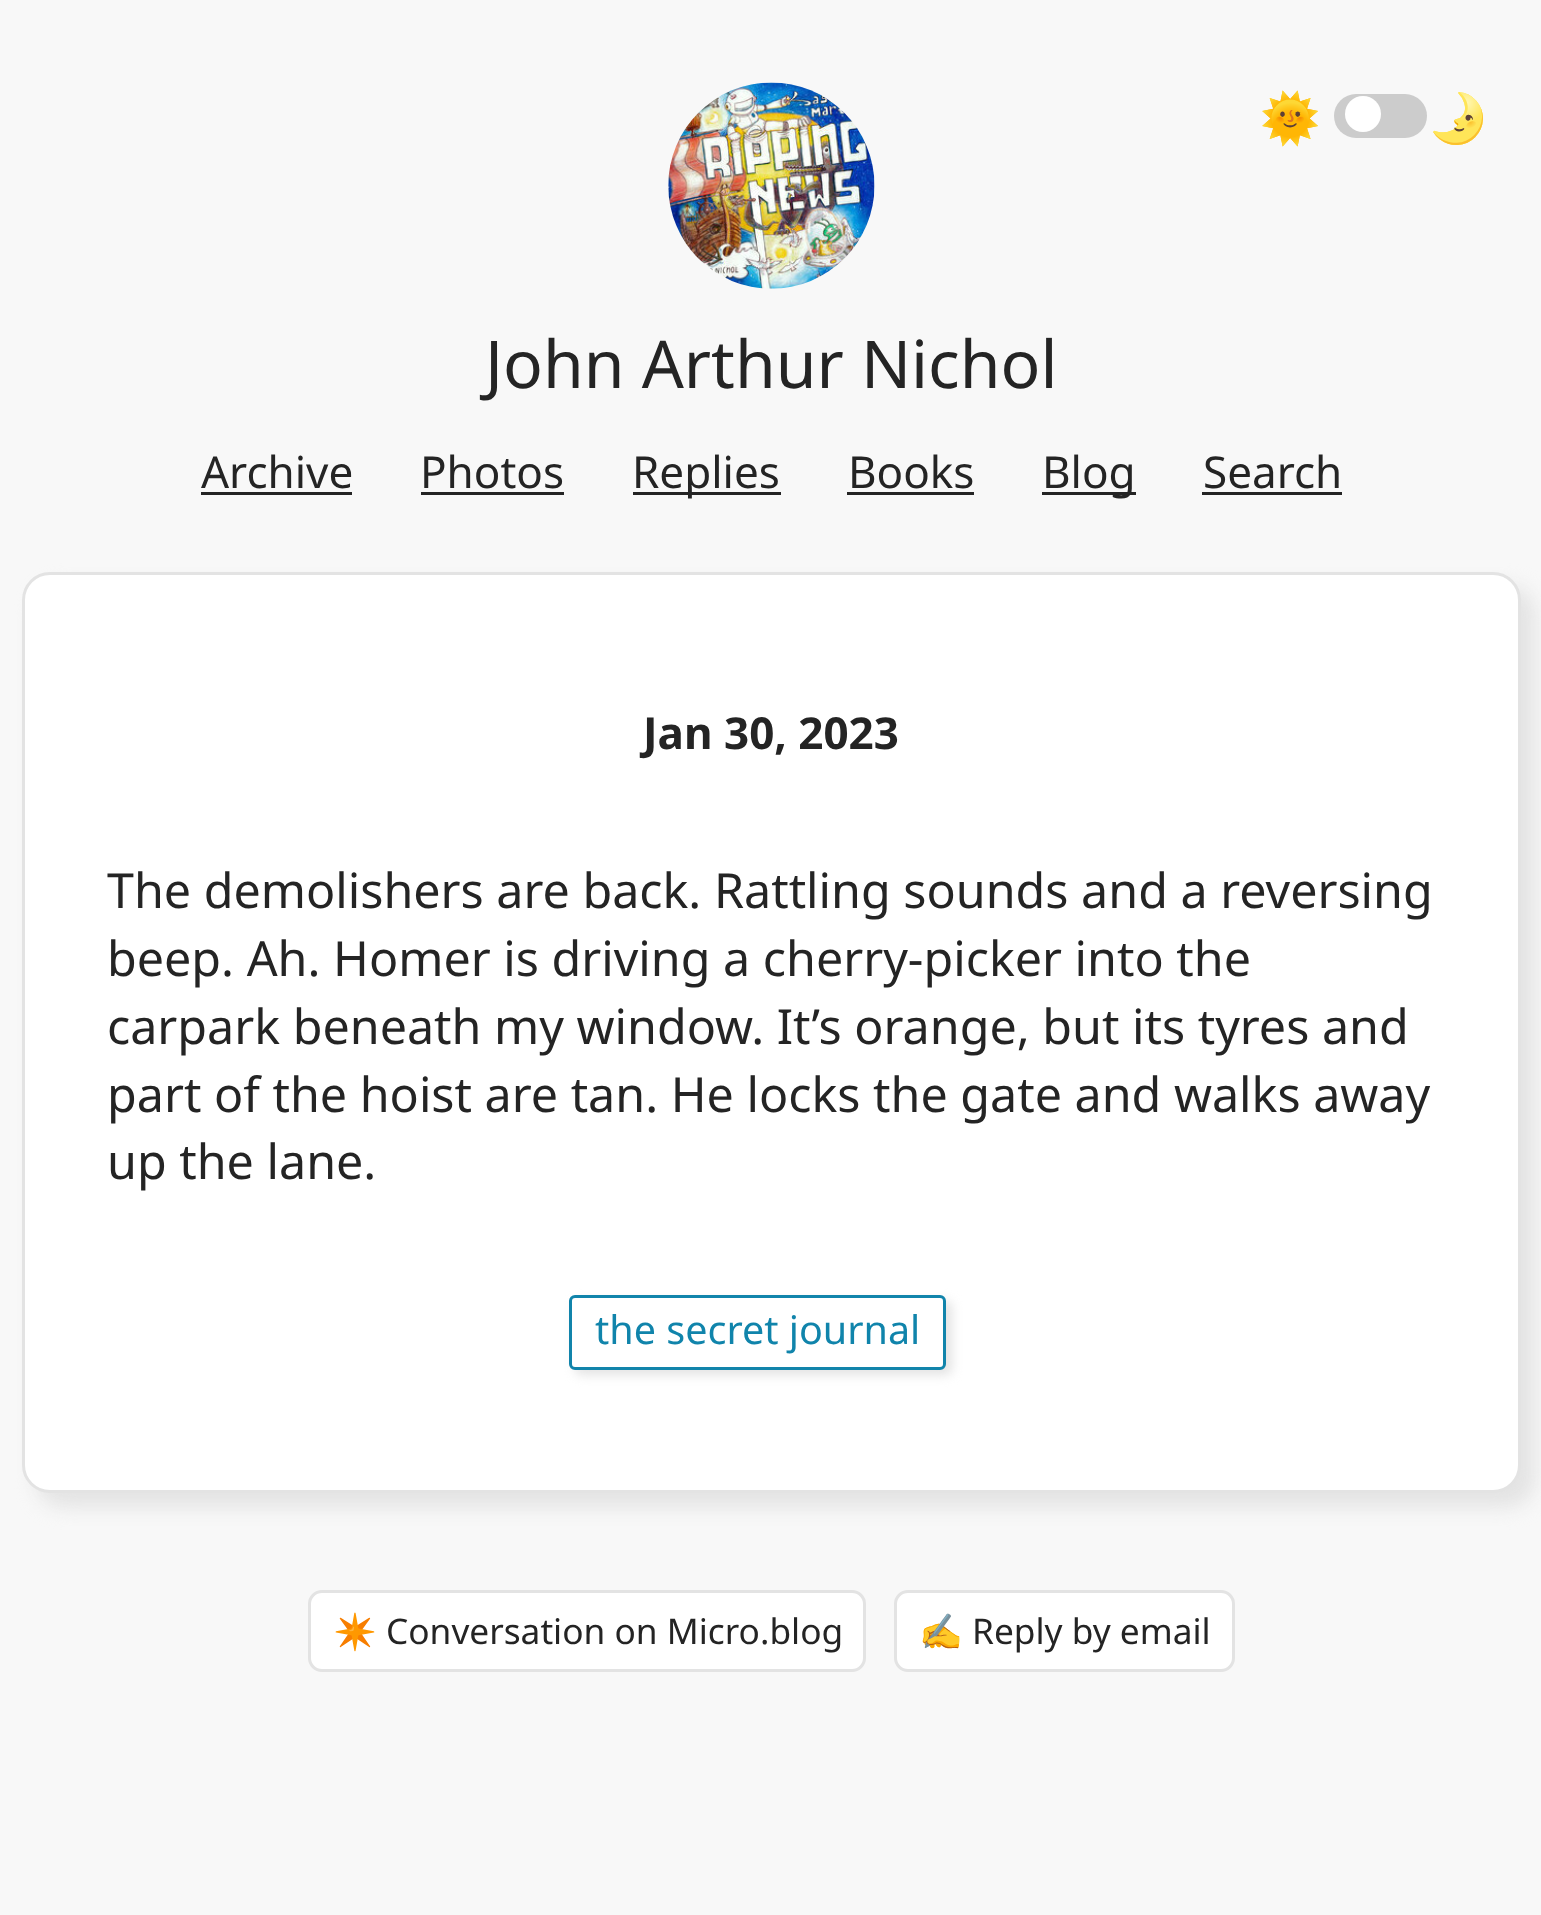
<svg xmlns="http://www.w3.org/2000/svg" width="1541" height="1915">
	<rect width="100%" height="100%" fill="#F8F8F8" />
	<text x="1260" y="135" font-family="Noto Color Emoji" font-size="48.4" fill="#242424">🌞</text>
	<rect x="1334" y="94" width="93" height="44" rx="22" fill="#CCCCCC" />
	<circle cx="1363" cy="114" r="18" fill="#FFFFFF" />
	<text x="1428" y="135" font-family="Noto Color Emoji" font-size="48.4" fill="#242424">🌛</text>
	<image x="668" y="82" width="207" height="207" href="assets/img1.png" />
	<text x="485" y="388" font-family="Noto Sans" font-size="66" fill="#242424">John Arthur Nichol</text>
	<text x="201" y="488" font-family="Noto Sans" font-size="44" fill="#242424">Archive</text>
	<rect x="201" y="492" width="151" height="3" fill="#242424" />
	<text x="420" y="488" font-family="Noto Sans" font-size="44" fill="#242424">Photos</text>
	<rect x="421" y="492" width="143" height="3" fill="#242424" />
	<rect x="633" y="492" width="148" height="3" fill="#242424" />
	<g font-family="Noto Sans" font-size="44" fill="#242424">
		<text x="632" y="488">Replies</text>
		<text x="848" y="488">Books</text>
	</g>
	<rect x="847" y="492" width="127" height="3" fill="#242424" />
	<rect x="1042" y="492" width="94" height="3" fill="#242424" />
	<g font-family="Noto Sans" font-size="44" fill="#242424">
		<text x="1042" y="488">Blog</text>
		<text x="1203" y="488">Search</text>
	</g>
	<rect x="1202" y="492" width="140" height="3" fill="#242424" />
	<rect x="36" y="586" width="1499" height="921" rx="28" fill="#E3E3E3" filter="blur(9.5px)" />
	<rect x="23.5" y="573.5" width="1496" height="918" rx="26.5" fill="#FFFFFF" stroke="#E3E3E3" stroke-width="3" />
	<text x="643" y="749" font-family="Noto Sans" font-size="44" font-weight="700" fill="#242424">Jan 30, 2023</text>
	<g font-family="Noto Sans" font-size="48.4" fill="#242424">
		<text x="107" y="908">The demolishers are back. Rattling sounds and a reversing</text>
		<text x="107" y="976">beep. Ah. Homer is driving a cherry-picker into the</text>
		<text x="107" y="1044">carpark beneath my window. It’s orange, but its tyres and</text>
		<text x="107" y="1112">part of the hoist are tan. He locks the gate and walks away</text>
		<text x="107" y="1179">up the lane.</text>
	</g>
	<rect x="575" y="1301" width="377" height="74" rx="6" fill="#E3E3E3" filter="blur(5.5px)" />
	<rect x="570.5" y="1296.5" width="374" height="72" rx="4.5" fill="#FFFFFF" stroke="#1184AB" stroke-width="3" />
	<text x="595" y="1344" font-family="Noto Sans" font-size="39.5" fill="#1084AB">the secret journal</text>
	<rect x="309.5" y="1591.5" width="555" height="79" rx="12.5" fill="#FFFFFF" stroke="#E3E3E3" stroke-width="3" />
	<text x="333" y="1644" font-family="Noto Color Emoji" font-size="35.25" fill="#242424">✴️</text>
	<text x="386" y="1644" font-family="Noto Sans" font-size="35.25" fill="#242424">Conversation on Micro.blog</text>
	<rect x="895.5" y="1591.5" width="338" height="79" rx="12.5" fill="#FFFFFF" stroke="#E3E3E3" stroke-width="3" />
	<text x="919" y="1644" font-family="Noto Color Emoji" font-size="35.25" fill="#242424">✍️</text>
	<text x="972" y="1644" font-family="Noto Sans" font-size="35.25" fill="#242424">Reply by email</text>
</svg>
